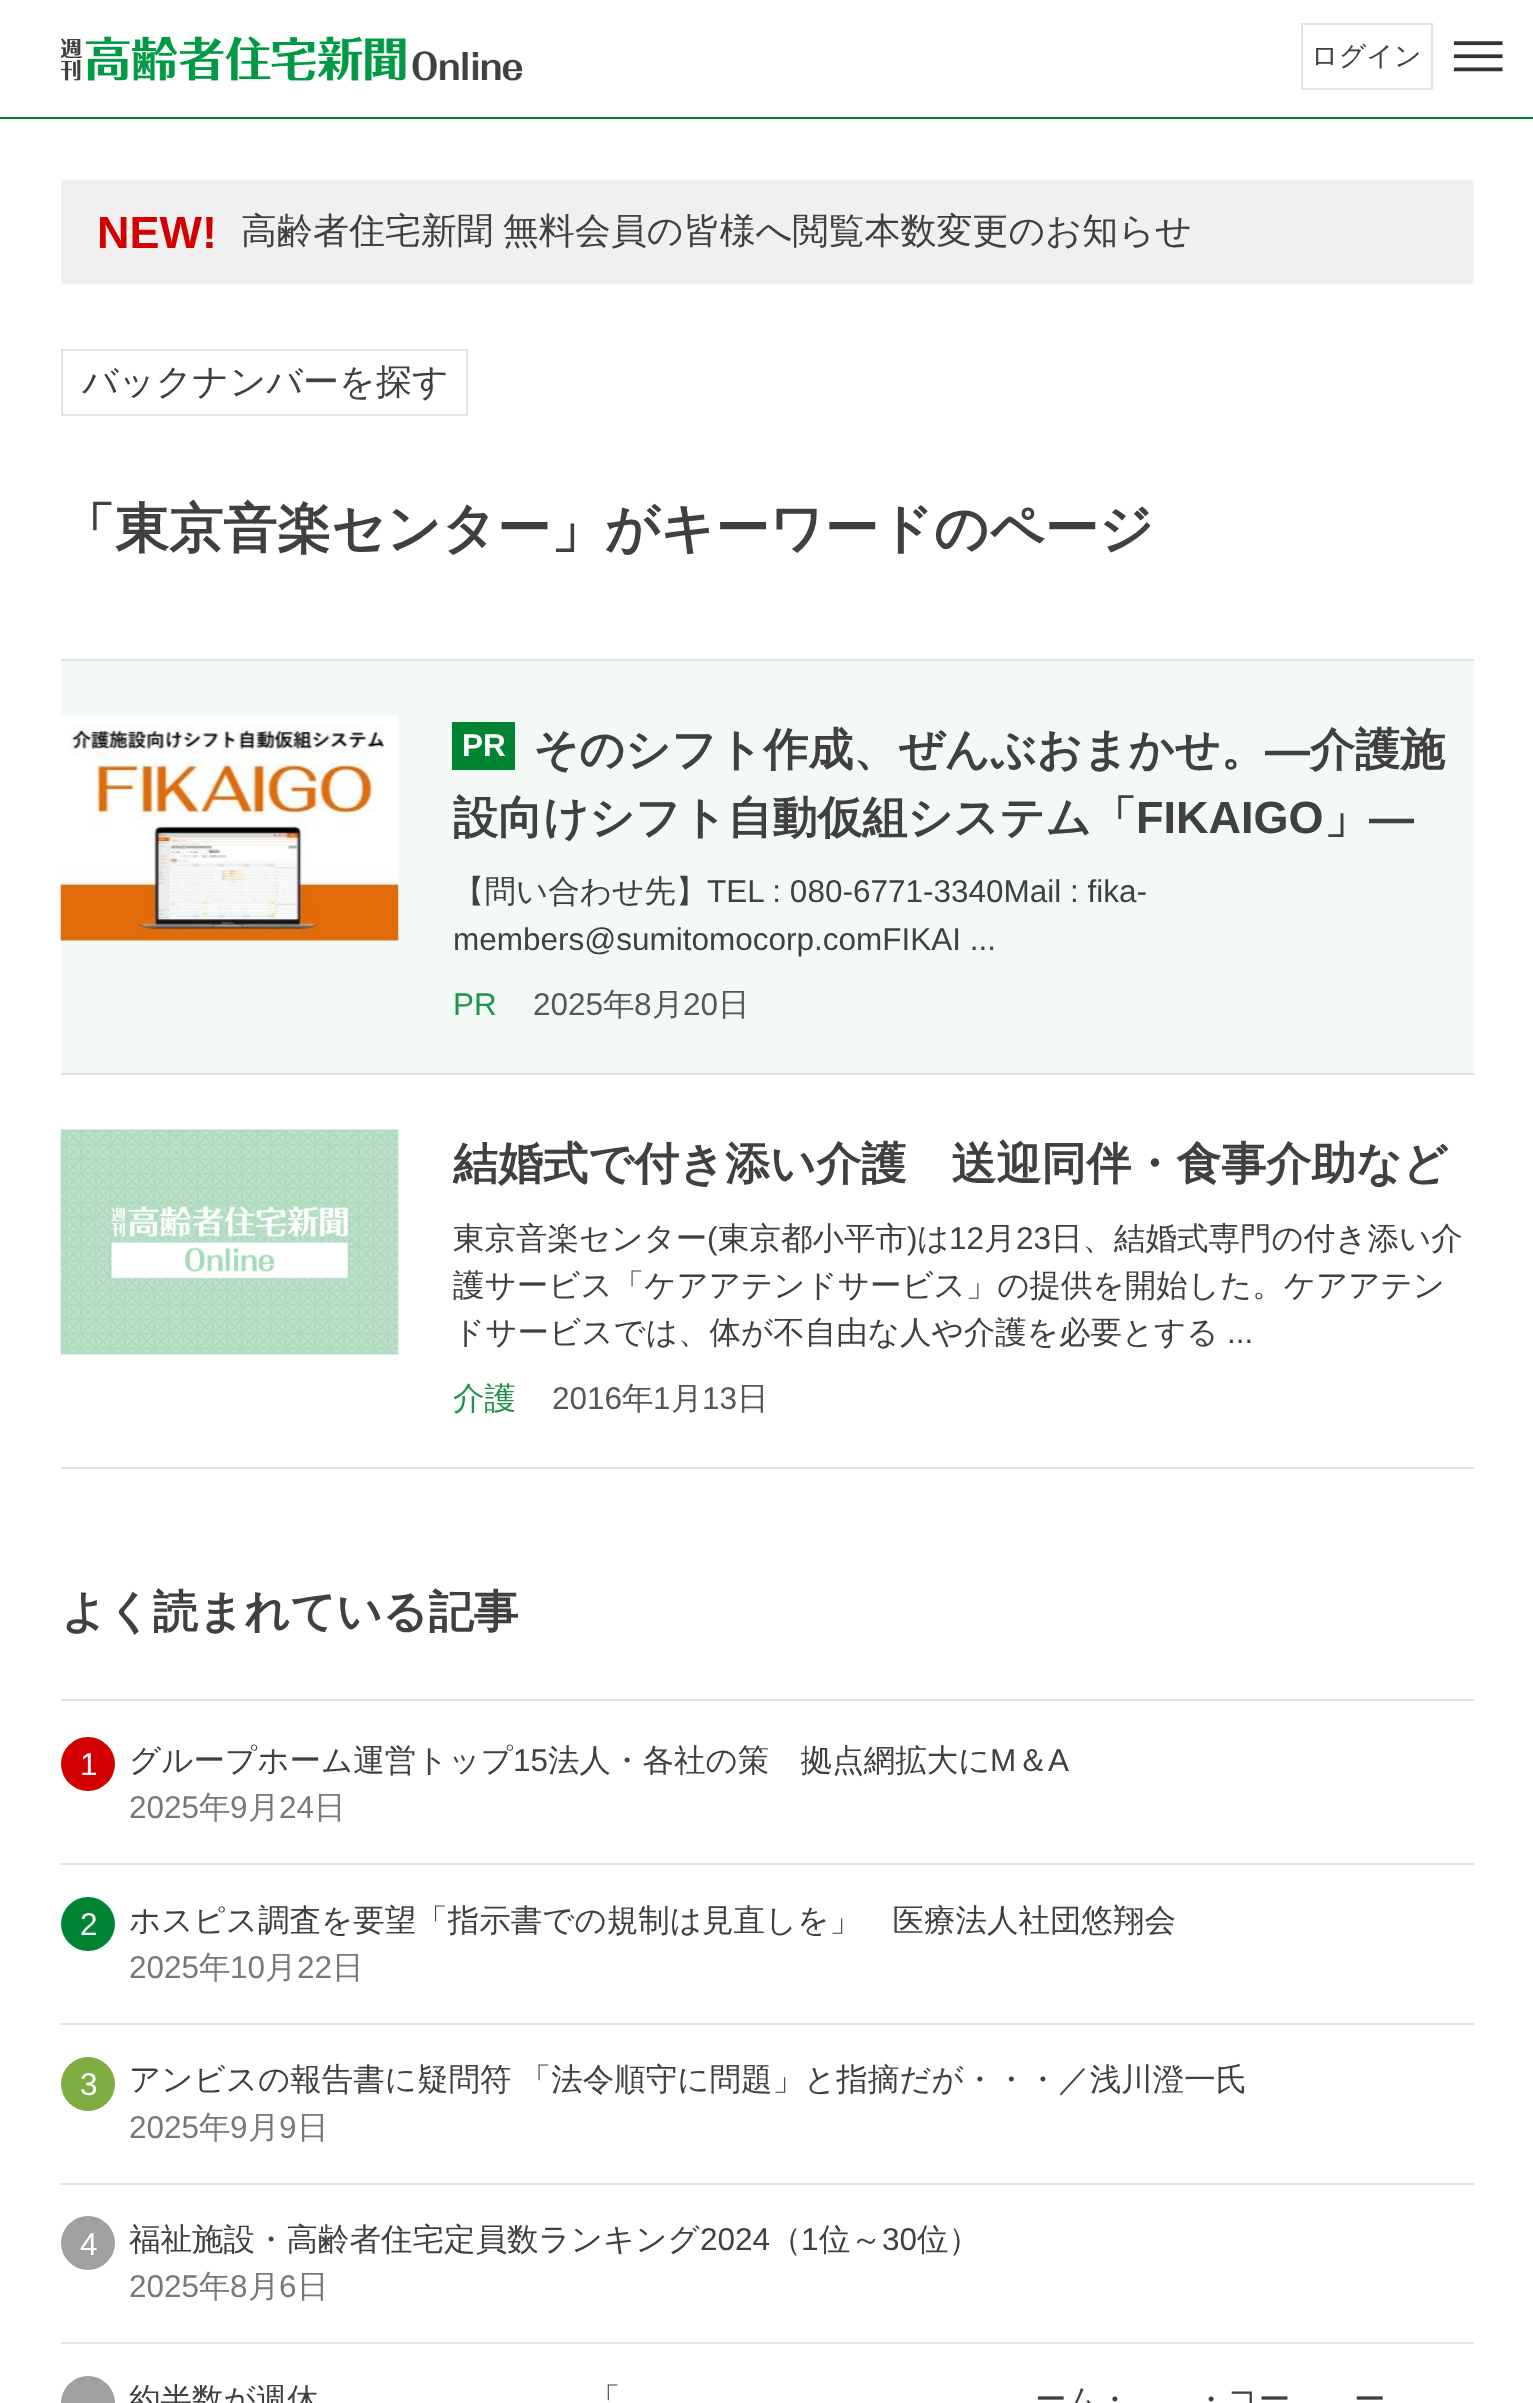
<svg xmlns="http://www.w3.org/2000/svg" width="1533" height="2403">
	<rect width="100%" height="100%" fill="#FFFFFF" />
	<rect x="0" y="117" width="1533" height="2" fill="#008433" />
	<image x="61" y="36" width="462" height="45" href="assets/img1.png" />
	<rect x="1302" y="24" width="130" height="65" fill="none" stroke="#E2E2E2" stroke-width="2" />
	<text x="1311" y="65" font-family="WenQuanYi Zen Hei" font-size="27" font-weight="500" fill="#404040">ログイン</text>
	<image x="1453" y="41" width="50" height="31" href="assets/img2.png" />
	<rect x="61" y="180" width="1413" height="104" fill="#F0F0F0" />
	<text x="97" y="248" font-family="Liberation Sans" font-size="45" font-weight="700" fill="#D20000">NEW!</text>
	<text x="241" y="243" word-spacing="-1" font-family="WenQuanYi Zen Hei" font-size="36" font-weight="500" fill="#404040">高齢者住宅新聞 無料会員の皆様へ閲覧本数変更のお知らせ</text>
	<rect x="62" y="350" width="405" height="65" fill="none" stroke="#E2E2E2" stroke-width="2" />
	<text x="82" y="394" font-family="WenQuanYi Zen Hei" font-size="36" font-weight="500" fill="#404040">バックナンバーを探す</text>
	<text x="61" y="547" font-family="WenQuanYi Zen Hei" font-size="54" font-weight="700" fill="#404040">「東京音楽センター」がキーワードのページ</text>
	<rect x="61" y="661" width="1413" height="412" fill="#F3FAF6" />
	<rect x="61" y="659" width="1413" height="2" fill="#E2E2E2" />
	<image x="60" y="715" width="339" height="226" href="assets/img3.png" />
	<rect x="452" y="722" width="63" height="48" fill="#008433" />
	<text x="462" y="756" font-family="Liberation Sans" font-size="31.5" font-weight="700" fill="#FFFFFF">PR</text>
	<text x="533" y="765" font-family="WenQuanYi Zen Hei" font-size="45" font-weight="700" fill="#404040">そのシフト作成、ぜんぶおまかせ。</text>
	<text x="1265" y="765" font-family="Liberation Sans" font-size="45" font-weight="700" fill="#404040">―</text>
	<g font-family="WenQuanYi Zen Hei" font-size="45" font-weight="700" fill="#404040">
		<text x="1310" y="765">介護施</text>
		<text x="453" y="833">設向けシフト自動仮組システム「</text>
	</g>
	<text x="1136" y="833" font-family="Liberation Sans" font-size="45" font-weight="700" fill="#404040">FIKAIGO</text>
	<text x="1324" y="833" font-family="WenQuanYi Zen Hei" font-size="45" font-weight="700" fill="#404040">」</text>
	<text x="1369" y="833" font-family="Liberation Sans" font-size="45" font-weight="700" fill="#404040">―</text>
	<text x="453" y="902" font-family="WenQuanYi Zen Hei" font-size="31.5" font-weight="500" fill="#404040">【問い合わせ先】</text>
	<g font-family="Liberation Sans" font-size="31.5" fill="#404040">
		<text x="707" y="902">TEL : 080-6771-3340Mail : fika-</text>
		<text x="453" y="950">members@sumitomocorp.comFIKAI ...</text>
	</g>
	<text x="453" y="1015" font-family="Liberation Sans" font-size="31.5" fill="#1E934B">PR</text>
	<text x="533" y="1015" font-family="Liberation Sans" font-size="31.5" fill="#565757">2025</text>
	<text x="603" y="1015" font-family="WenQuanYi Zen Hei" font-size="31.5" font-weight="500" fill="#565757">年</text>
	<text x="634" y="1015" font-family="Liberation Sans" font-size="31.5" fill="#565757">8</text>
	<text x="652" y="1015" font-family="WenQuanYi Zen Hei" font-size="31.5" font-weight="500" fill="#565757">月</text>
	<text x="683" y="1015" font-family="Liberation Sans" font-size="31.5" fill="#565757">20</text>
	<text x="718" y="1015" font-family="WenQuanYi Zen Hei" font-size="31.5" font-weight="500" fill="#565757">日</text>
	<rect x="61" y="1073" width="1413" height="2" fill="#E2E2E2" />
	<rect x="61" y="1467" width="1413" height="2" fill="#E2E2E2" />
	<image x="60" y="1129" width="339" height="226" href="assets/img4.png" />
	<text x="453" y="1179" font-family="WenQuanYi Zen Hei" font-size="45" font-weight="700" fill="#404040">結婚式で付き添い介護　送迎同伴・食事介助など</text>
	<text x="453" y="1249" font-family="WenQuanYi Zen Hei" font-size="31.5" font-weight="500" fill="#404040">東京音楽センター</text>
	<text x="707" y="1249" font-family="Liberation Sans" font-size="31.5" fill="#404040">(</text>
	<text x="718" y="1249" font-family="WenQuanYi Zen Hei" font-size="31.5" font-weight="500" fill="#404040">東京都小平市</text>
	<text x="907" y="1249" font-family="Liberation Sans" font-size="31.5" fill="#404040">)</text>
	<text x="917" y="1249" font-family="WenQuanYi Zen Hei" font-size="31.5" font-weight="500" fill="#404040">は</text>
	<text x="949" y="1249" font-family="Liberation Sans" font-size="31.5" fill="#404040">12</text>
	<text x="984" y="1249" font-family="WenQuanYi Zen Hei" font-size="31.5" font-weight="500" fill="#404040">月</text>
	<text x="1016" y="1249" font-family="Liberation Sans" font-size="31.5" fill="#404040">23</text>
	<g font-family="WenQuanYi Zen Hei" font-size="31.5" font-weight="500" fill="#404040">
		<text x="1051" y="1249">日、結婚式専門の付き添い介</text>
		<text x="453" y="1296">護サービス「ケアアテンドサービス」の提供を開始した。ケアアテン</text>
		<text x="453" y="1343">ドサービスでは、体が不自由な人や介護を必要とする</text>
	</g>
	<text x="1227" y="1343" font-family="Liberation Sans" font-size="31.5" fill="#404040">...</text>
	<text x="453" y="1409" font-family="WenQuanYi Zen Hei" font-size="31.5" font-weight="500" fill="#1E934B">介護</text>
	<text x="552" y="1409" font-family="Liberation Sans" font-size="31.5" fill="#565757">2016</text>
	<text x="622" y="1409" font-family="WenQuanYi Zen Hei" font-size="31.5" font-weight="500" fill="#565757">年</text>
	<text x="653" y="1409" font-family="Liberation Sans" font-size="31.5" fill="#565757">1</text>
	<text x="671" y="1409" font-family="WenQuanYi Zen Hei" font-size="31.5" font-weight="500" fill="#565757">月</text>
	<text x="702" y="1409" font-family="Liberation Sans" font-size="31.5" fill="#565757">13</text>
	<text x="737" y="1409" font-family="WenQuanYi Zen Hei" font-size="31.5" font-weight="500" fill="#565757">日</text>
	<text x="61" y="1627" font-family="WenQuanYi Zen Hei" font-size="45" font-weight="700" fill="#404040">よく読まれている記事</text>
	<rect x="61" y="1699" width="1413" height="2" fill="#E2E2E2" />
	<rect x="61" y="1863" width="1413" height="2" fill="#E2E2E2" />
	<circle cx="88" cy="1764" r="27" fill="#D20000" />
	<text x="80" y="1775" font-family="Liberation Sans" font-size="31.5" fill="#FFFFFF">1</text>
	<text x="129" y="1771" font-family="WenQuanYi Zen Hei" font-size="31.5" font-weight="500" fill="#404040">グループホーム運営トップ</text>
	<text x="513" y="1771" font-family="Liberation Sans" font-size="31.5" fill="#404040">15</text>
	<text x="548" y="1771" font-family="WenQuanYi Zen Hei" font-size="31.5" font-weight="500" fill="#404040">法人・各社の策　拠点網拡大に</text>
	<text x="990" y="1771" font-family="Liberation Sans" font-size="31.5" fill="#404040">M</text>
	<text x="1017" y="1771" font-family="WenQuanYi Zen Hei" font-size="31.5" font-weight="500" fill="#404040">＆</text>
	<text x="1048" y="1771" font-family="Liberation Sans" font-size="31.5" fill="#404040">A</text>
	<text x="129" y="1818" font-family="Liberation Sans" font-size="31.5" fill="#797979">2025</text>
	<text x="199" y="1818" font-family="WenQuanYi Zen Hei" font-size="31.5" font-weight="500" fill="#797979">年</text>
	<text x="230" y="1818" font-family="Liberation Sans" font-size="31.5" fill="#797979">9</text>
	<text x="248" y="1818" font-family="WenQuanYi Zen Hei" font-size="31.5" font-weight="500" fill="#797979">月</text>
	<text x="279" y="1818" font-family="Liberation Sans" font-size="31.5" fill="#797979">24</text>
	<text x="314" y="1818" font-family="WenQuanYi Zen Hei" font-size="31.5" font-weight="500" fill="#797979">日</text>
	<rect x="61" y="2023" width="1413" height="2" fill="#E2E2E2" />
	<circle cx="88" cy="1924" r="27" fill="#008433" />
	<text x="80" y="1935" font-family="Liberation Sans" font-size="31.5" fill="#FFFFFF">2</text>
	<text x="129" y="1931" font-family="WenQuanYi Zen Hei" font-size="31.5" font-weight="500" fill="#404040">ホスピス調査を要望「指示書での規制は見直しを」　医療法人社団悠翔会</text>
	<text x="129" y="1978" font-family="Liberation Sans" font-size="31.5" fill="#797979">2025</text>
	<text x="199" y="1978" font-family="WenQuanYi Zen Hei" font-size="31.5" font-weight="500" fill="#797979">年</text>
	<text x="230" y="1978" font-family="Liberation Sans" font-size="31.5" fill="#797979">10</text>
	<text x="265" y="1978" font-family="WenQuanYi Zen Hei" font-size="31.5" font-weight="500" fill="#797979">月</text>
	<text x="297" y="1978" font-family="Liberation Sans" font-size="31.5" fill="#797979">22</text>
	<text x="332" y="1978" font-family="WenQuanYi Zen Hei" font-size="31.5" font-weight="500" fill="#797979">日</text>
	<rect x="61" y="2183" width="1413" height="2" fill="#E2E2E2" />
	<circle cx="88" cy="2084" r="27" fill="#80AD43" />
	<text x="80" y="2095" font-family="Liberation Sans" font-size="31.5" fill="#FFFFFF">3</text>
	<text x="129" y="2090" word-spacing="-1" font-family="WenQuanYi Zen Hei" font-size="31.5" font-weight="500" fill="#404040">アンビスの報告書に疑問符 「法令順守に問題」と指摘だが・・・／浅川澄一氏</text>
	<text x="129" y="2138" font-family="Liberation Sans" font-size="31.5" fill="#797979">2025</text>
	<text x="199" y="2138" font-family="WenQuanYi Zen Hei" font-size="31.5" font-weight="500" fill="#797979">年</text>
	<text x="230" y="2138" font-family="Liberation Sans" font-size="31.5" fill="#797979">9</text>
	<text x="248" y="2138" font-family="WenQuanYi Zen Hei" font-size="31.5" font-weight="500" fill="#797979">月</text>
	<text x="279" y="2138" font-family="Liberation Sans" font-size="31.5" fill="#797979">9</text>
	<text x="297" y="2138" font-family="WenQuanYi Zen Hei" font-size="31.5" font-weight="500" fill="#797979">日</text>
	<rect x="61" y="2342" width="1413" height="2" fill="#E2E2E2" />
	<circle cx="88" cy="2243" r="27" fill="#A0A0A0" />
	<text x="80" y="2255" font-family="Liberation Sans" font-size="31.5" fill="#FFFFFF">4</text>
	<text x="129" y="2250" font-family="WenQuanYi Zen Hei" font-size="31.5" font-weight="500" fill="#404040">福祉施設・高齢者住宅定員数ランキング</text>
	<text x="700" y="2250" font-family="Liberation Sans" font-size="31.5" fill="#404040">2024</text>
	<text x="770" y="2250" font-family="WenQuanYi Zen Hei" font-size="31.5" font-weight="500" fill="#404040">（</text>
	<text x="801" y="2250" font-family="Liberation Sans" font-size="31.5" fill="#404040">1</text>
	<text x="819" y="2250" font-family="WenQuanYi Zen Hei" font-size="31.5" font-weight="500" fill="#404040">位～</text>
	<text x="882" y="2250" font-family="Liberation Sans" font-size="31.5" fill="#404040">30</text>
	<text x="917" y="2250" font-family="WenQuanYi Zen Hei" font-size="31.5" font-weight="500" fill="#404040">位）</text>
	<text x="129" y="2297" font-family="Liberation Sans" font-size="31.5" fill="#797979">2025</text>
	<text x="199" y="2297" font-family="WenQuanYi Zen Hei" font-size="31.5" font-weight="500" fill="#797979">年</text>
	<text x="230" y="2297" font-family="Liberation Sans" font-size="31.5" fill="#797979">8</text>
	<text x="248" y="2297" font-family="WenQuanYi Zen Hei" font-size="31.5" font-weight="500" fill="#797979">月</text>
	<text x="279" y="2297" font-family="Liberation Sans" font-size="31.5" fill="#797979">6</text>
	<text x="297" y="2297" font-family="WenQuanYi Zen Hei" font-size="31.5" font-weight="500" fill="#797979">日</text>
	<circle cx="88" cy="2403" r="27" fill="#A0A0A0" />
	<g font-family="WenQuanYi Zen Hei" font-size="31.5" font-weight="500" fill="#404040">
		<text x="129" y="2410">約半数が週休</text>
		<text x="589" y="2410">「</text>
		<text x="1035" y="2410">ーム・</text>
		<text x="1195" y="2410">・コー</text>
		<text x="1354" y="2410">ー</text>
	</g>
</svg>
